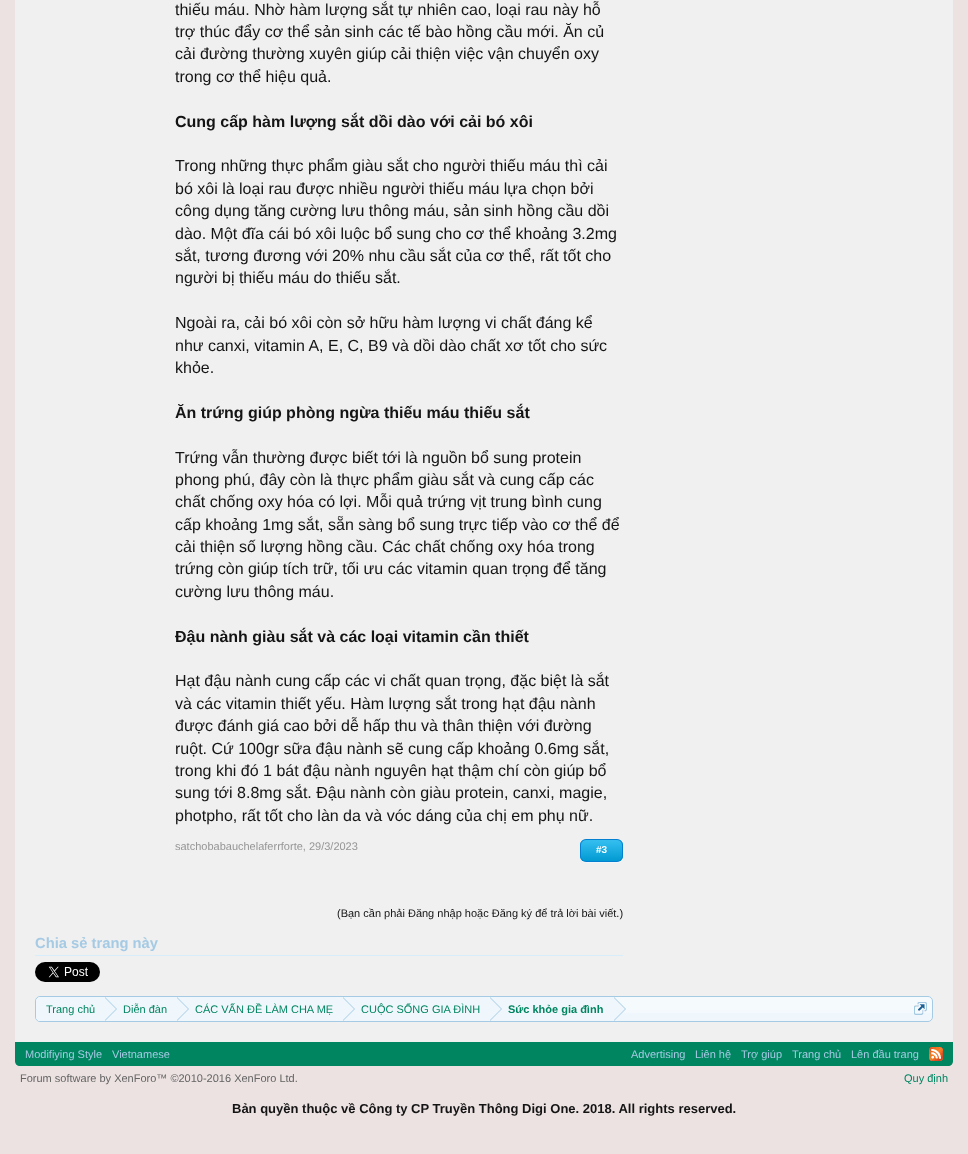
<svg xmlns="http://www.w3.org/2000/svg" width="968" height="1154">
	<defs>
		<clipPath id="clip1"><rect x="175" y="0" width="448" height="829" /></clipPath>
		<clipPath id="clip2"><rect x="580" y="839" width="43" height="23" rx="6" /></clipPath>
		<linearGradient id="g1" gradientUnits="userSpaceOnUse" x1="602" y1="840" x2="602" y2="861"><stop offset="0.05" stop-color="#33BDEF" /><stop offset="1" stop-color="#019AD2" /></linearGradient>
		<clipPath id="clip3"><rect x="36" y="997" width="896" height="24" rx="4" /></clipPath>
	</defs>
	<rect width="100%" height="100%" fill="#ECE2E2" />
	<rect x="15" y="0" width="938" height="1042" fill="#F0F0F0" />
	<g font-family="Liberation Sans" font-size="16" fill="#141414">
		<text x="175" y="15">thiếu máu. Nhờ hàm lượng sắt tự nhiên cao, loại rau này hỗ</text>
		<text x="175" y="37">trợ thúc đẩy cơ thể sản sinh các tế bào hồng cầu mới. Ăn củ</text>
		<text x="175" y="59">cải đường thường xuyên giúp cải thiện việc vận chuyển oxy</text>
		<text x="175" y="82">trong cơ thể hiệu quả.</text>
	</g>
	<text x="175" y="127" font-family="Liberation Sans" font-size="16" font-weight="700" fill="#141414">Cung cấp hàm lượng sắt dồi dào với cải bó xôi</text>
	<g font-family="Liberation Sans" font-size="16" fill="#141414">
		<text x="175" y="171">Trong những thực phẩm giàu sắt cho người thiếu máu thì cải</text>
		<text x="175" y="194">bó xôi là loại rau được nhiều người thiếu máu lựa chọn bởi</text>
		<text x="175" y="216">công dụng tăng cường lưu thông máu, sản sinh hồng cầu dồi</text>
		<text x="175" y="239">dào. Một đĩa cái bó xôi luộc bổ sung cho cơ thể khoảng 3.2mg</text>
		<text x="175" y="261">sắt, tương đương với 20% nhu cầu sắt của cơ thể, rất tốt cho</text>
		<text x="175" y="283">người bị thiếu máu do thiếu sắt.</text>
		<text x="175" y="328">Ngoài ra, cải bó xôi còn sở hữu hàm lượng vi chất đáng kể</text>
		<text x="175" y="351">như canxi, vitamin A, E, C, B9 và dồi dào chất xơ tốt cho sức</text>
		<text x="175" y="373">khỏe.</text>
	</g>
	<text x="175" y="418" font-family="Liberation Sans" font-size="16" font-weight="700" fill="#141414">Ăn trứng giúp phòng ngừa thiếu máu thiếu sắt</text>
	<g font-family="Liberation Sans" font-size="16" fill="#141414">
		<text x="175" y="463">Trứng vẫn thường được biết tới là nguồn bổ sung protein</text>
		<text x="175" y="485">phong phú, đây còn là thực phẩm giàu sắt và cung cấp các</text>
		<text x="175" y="507">chất chống oxy hóa có lợi. Mỗi quả trứng vịt trung bình cung</text>
		<text x="175" y="530">cấp khoảng 1mg sắt, sẵn sàng bổ sung trực tiếp vào cơ thể để</text>
		<text x="175" y="552">cải thiện số lượng hồng cầu. Các chất chống oxy hóa trong</text>
		<text x="175" y="574">trứng còn giúp tích trữ, tối ưu các vitamin quan trọng để tăng</text>
		<text x="175" y="597">cường lưu thông máu.</text>
	</g>
	<g clip-path="url(#clip1)">
		<text x="175" y="642" font-family="Liberation Sans" font-size="16" font-weight="700" fill="#141414">Đậu nành giàu sắt và các loại vitamin cần thiết</text>
	</g>
	<g font-family="Liberation Sans" font-size="16" fill="#141414">
		<text x="175" y="686">Hạt đậu nành cung cấp các vi chất quan trọng, đặc biệt là sắt</text>
		<text x="175" y="709">và các vitamin thiết yếu. Hàm lượng sắt trong hạt đậu nành</text>
		<text x="175" y="731">được đánh giá cao bởi dễ hấp thu và thân thiện với đường</text>
		<text x="175" y="754">ruột. Cứ 100gr sữa đậu nành sẽ cung cấp khoảng 0.6mg sắt,</text>
		<text x="175" y="776">trong khi đó 1 bát đậu nành nguyên hạt thậm chí còn giúp bổ</text>
		<text x="175" y="798">sung tới 8.8mg sắt. Đậu nành còn giàu protein, canxi, magie,</text>
		<text x="175" y="821">photpho, rất tốt cho làn da và vóc dáng của chị em phụ nữ.</text>
	</g>
	<text x="175" y="850" font-family="Liberation Sans" font-size="11" fill="#969696">satchobabauchelaferrforte, 29/3/2023</text>
	<path d="M580 856C580 863 585 863 591 863H612C618 863 623 863 623 856C623 859 620 862 617 862H586C583 862 580 859 580 856Z" fill="#F0F7FA" />
	<g clip-path="url(#clip2)">
		<rect x="580" y="840" width="43" height="21" fill="url(#g1)" />
	</g>
	<rect x="580.5" y="839.5" width="42" height="22" rx="5.5" fill="none" stroke="#057FD0" />
	<text x="596" y="853" font-family="Liberation Sans" font-size="10" font-weight="700" fill="#FFFFFF">#3</text>
	<text x="337" y="917" font-family="Liberation Sans" font-size="11" fill="#141414">(Bạn cần phải Đăng nhập hoặc Đăng ký để trả lời bài viết.)</text>
	<rect x="35" y="955" width="588" height="1" fill="#D7EDFC" />
	<text x="35" y="948" font-family="Liberation Sans" font-size="14.75" font-weight="700" fill="#A5CAE4">Chia sẻ trang này</text>
	<image x="35" y="962" width="65" height="20" href="assets/img1.png" />
	<rect x="35" y="996" width="898" height="26" rx="5" fill="#F0F7FC" />
	<image x="35" y="997" width="898" height="16" href="assets/img2.png" />
	<rect x="35.5" y="996.5" width="897" height="25" rx="4.5" fill="none" stroke="#A5CAE4" />
	<g clip-path="url(#clip3)">
		<path d="M41 997H105V1022H41C38 1022 36 1020 36 1017V1002C36 999 38 997 41 997Z" fill="#F0F7FC" />
	</g>
	<text x="46" y="1013" font-family="Liberation Sans" font-size="11" fill="#008561">Trang chủ</text>
	<rect x="105" y="997" width="509" height="16" fill="#F0F7FC" />
	<path d="M105 1021V997L117 1009Z" fill="#A5CAE4" />
	<path d="M104 1021V997L116 1009Z" fill="#F0F7FC" />
	<text x="123" y="1013" font-family="Liberation Sans" font-size="11" fill="#008561">Diễn đàn</text>
	<path d="M177 1021V997L189 1009Z" fill="#A5CAE4" />
	<path d="M176 1021V997L188 1009Z" fill="#F0F7FC" />
	<text x="195" y="1013" font-family="Liberation Sans" font-size="11" fill="#008561">CÁC VẤN ĐỀ LÀM CHA MẸ</text>
	<path d="M343 1021V997L355 1009Z" fill="#A5CAE4" />
	<path d="M342 1021V997L354 1009Z" fill="#F0F7FC" />
	<text x="361" y="1013" font-family="Liberation Sans" font-size="11" fill="#008561">CUỘC SỐNG GIA ĐÌNH</text>
	<path d="M490 1021V997L502 1009Z" fill="#A5CAE4" />
	<path d="M489 1021V997L501 1009Z" fill="#F0F7FC" />
	<text x="508" y="1013" font-family="Liberation Sans" font-size="11" font-weight="700" fill="#008561">Sức khỏe gia đình</text>
	<path d="M614 1021V997L626 1009Z" fill="#A5CAE4" />
	<path d="M613 1021V997L625 1009Z" fill="#F0F7FC" />
	<image x="914" y="1002" width="13" height="13" href="assets/img3.png" />
	<path d="M15 1042H953V1061C953 1064 951 1066 948 1066H20C17 1066 15 1064 15 1061Z" fill="#008561" />
	<g font-family="Liberation Sans" font-size="11" fill="#A5CAE4">
		<text x="25" y="1058">Modifiying Style</text>
		<text x="112" y="1058">Vietnamese</text>
		<text x="631" y="1058">Advertising</text>
		<text x="695" y="1058">Liên hệ</text>
		<text x="741" y="1058">Trợ giúp</text>
		<text x="792" y="1058">Trang chủ</text>
		<text x="851" y="1058">Lên đầu trang</text>
	</g>
	<image x="929" y="1047" width="14" height="14" href="assets/img4.png" />
	<text x="20" y="1082" font-family="Liberation Sans" font-size="11" fill="#646464">Forum software by XenForo™ ©2010-2016 XenForo Ltd.</text>
	<text x="904" y="1082" font-family="Liberation Sans" font-size="11" fill="#008561">Quy định</text>
	<text x="232" y="1113" font-family="Liberation Sans" font-size="13" font-weight="700" fill="#141414">Bản quyền thuộc về Công ty CP Truyền Thông Digi One. 2018. All rights reserved.</text>
</svg>
